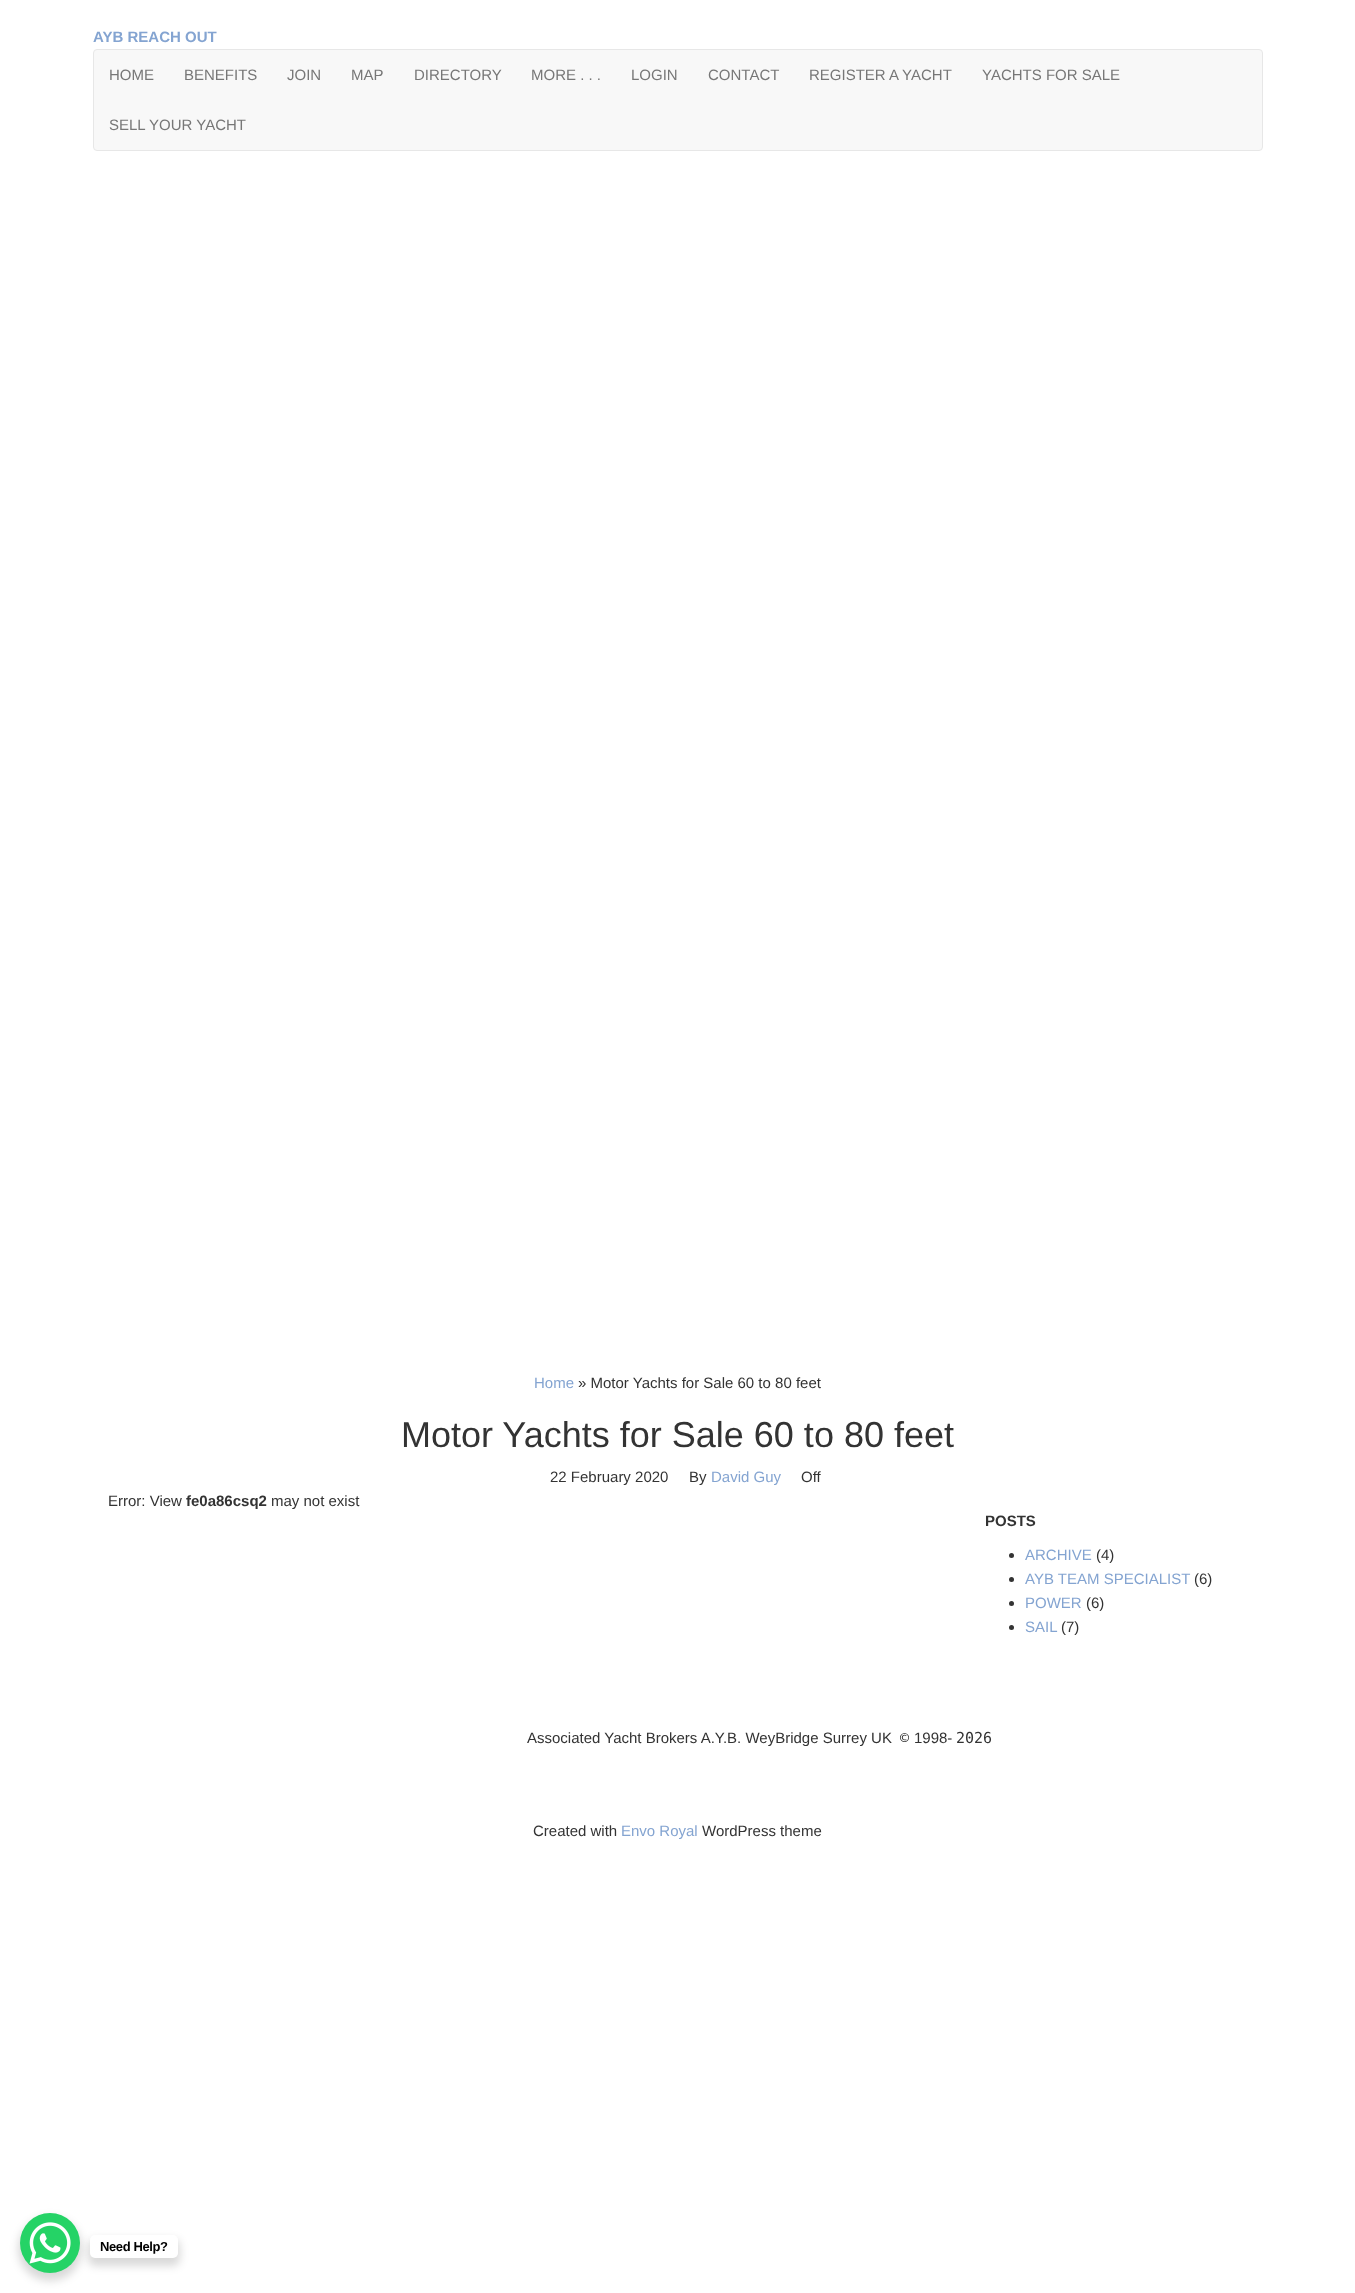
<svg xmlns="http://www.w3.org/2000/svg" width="1355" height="2293">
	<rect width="100%" height="100%" fill="#FFFFFF" />
	<text x="93" y="42" font-family="Liberation Sans" font-size="15" font-weight="700" fill="#84A4D1">AYB REACH OUT</text>
	<rect x="93.5" y="49.5" width="1169" height="101" rx="3.5" fill="#F8F8F8" stroke="#E7E7E7" />
	<g font-family="Liberation Sans" font-size="15" fill="#777777">
		<text x="109" y="80">HOME</text>
		<text x="184" y="80">BENEFITS</text>
		<text x="287" y="80">JOIN</text>
		<text x="351" y="80">MAP</text>
		<text x="414" y="80">DIRECTORY</text>
		<text x="531" y="80">MORE . . .</text>
		<text x="631" y="80">LOGIN</text>
		<text x="708" y="80">CONTACT</text>
		<text x="809" y="80">REGISTER A YACHT</text>
		<text x="982" y="80">YACHTS FOR SALE</text>
		<text x="109" y="130">SELL YOUR YACHT</text>
	</g>
	<text x="534" y="1388" font-family="Liberation Sans" font-size="15" fill="#84A4D1">Home</text>
	<text x="578" y="1388" font-family="Liberation Sans" font-size="15" fill="#333333">» Motor Yachts for Sale 60 to 80 feet</text>
	<text x="401" y="1447" font-family="Liberation Sans" font-size="36" fill="#333333">Motor Yachts for Sale 60 to 80 feet</text>
	<g font-family="Liberation Sans" font-size="15" fill="#333333">
		<text x="550" y="1482">22 February 2020</text>
		<text x="689" y="1482">By</text>
	</g>
	<text x="711" y="1482" font-family="Liberation Sans" font-size="15" fill="#84A4D1">David Guy</text>
	<g font-family="Liberation Sans" font-size="15" fill="#333333">
		<text x="801" y="1482">Off</text>
		<text x="108" y="1506">Error: View</text>
	</g>
	<text x="186" y="1506" font-family="Liberation Sans" font-size="15" font-weight="700" fill="#333333">fe0a86csq2</text>
	<text x="271" y="1506" font-family="Liberation Sans" font-size="15" fill="#333333">may not exist</text>
	<text x="985" y="1526" font-family="Liberation Sans" font-size="15" font-weight="700" fill="#333333">POSTS</text>
	<circle cx="1011.5" cy="1555.5" r="2.5" fill="#333333" />
	<text x="1025" y="1560" font-family="Liberation Sans" font-size="15" fill="#84A4D1">ARCHIVE</text>
	<text x="1096" y="1560" font-family="Liberation Sans" font-size="15" fill="#333333">(4)</text>
	<circle cx="1011.5" cy="1579.5" r="2.5" fill="#333333" />
	<text x="1025" y="1584" font-family="Liberation Sans" font-size="15" fill="#84A4D1">AYB TEAM SPECIALIST</text>
	<text x="1194" y="1584" font-family="Liberation Sans" font-size="15" fill="#333333">(6)</text>
	<circle cx="1011.5" cy="1603.5" r="2.5" fill="#333333" />
	<text x="1025" y="1608" font-family="Liberation Sans" font-size="15" fill="#84A4D1">POWER</text>
	<text x="1086" y="1608" font-family="Liberation Sans" font-size="15" fill="#333333">(6)</text>
	<circle cx="1011.5" cy="1627.5" r="2.5" fill="#333333" />
	<text x="1025" y="1632" font-family="Liberation Sans" font-size="15" fill="#84A4D1">SAIL</text>
	<g font-family="Liberation Sans" font-size="15" fill="#333333">
		<text x="1061" y="1632">(7)</text>
		<text x="527" y="1743">Associated Yacht Brokers A.Y.B. WeyBridge Surrey UK</text>
	</g>
	<text x="900" y="1743" font-family="DejaVu Sans Mono" font-size="15" fill="#333333">©</text>
	<text x="914" y="1743" font-family="Liberation Sans" font-size="15" fill="#333333">1998-</text>
	<text x="956" y="1743" font-family="DejaVu Sans Mono" font-size="15" fill="#333333">2026</text>
	<text x="533" y="1836" font-family="Liberation Sans" font-size="15" fill="#333333">Created with</text>
	<text x="621" y="1836" font-family="Liberation Sans" font-size="15" fill="#84A4D1">Envo Royal</text>
	<text x="702" y="1836" font-family="Liberation Sans" font-size="15" fill="#333333">WordPress theme</text>
	<rect x="18" y="2217" width="64" height="64" rx="32" fill="#000000" fill-opacity="0.15" filter="blur(4px)" />
	<circle cx="50" cy="2243" r="30" fill="#25D366" />
	<image x="29" y="2222" width="42" height="42" href="assets/img1.png" />
	<rect x="88" y="2239" width="92" height="27" rx="7" fill="#000000" fill-opacity="0.15" filter="blur(4px)" />
	<rect x="90" y="2235" width="88" height="23" rx="5" fill="#FFFFFF" />
	<text x="100" y="2251" font-family="Liberation Sans" font-size="13" font-weight="700" letter-spacing="-0.4" fill="#000000">Need Help?</text>
</svg>
